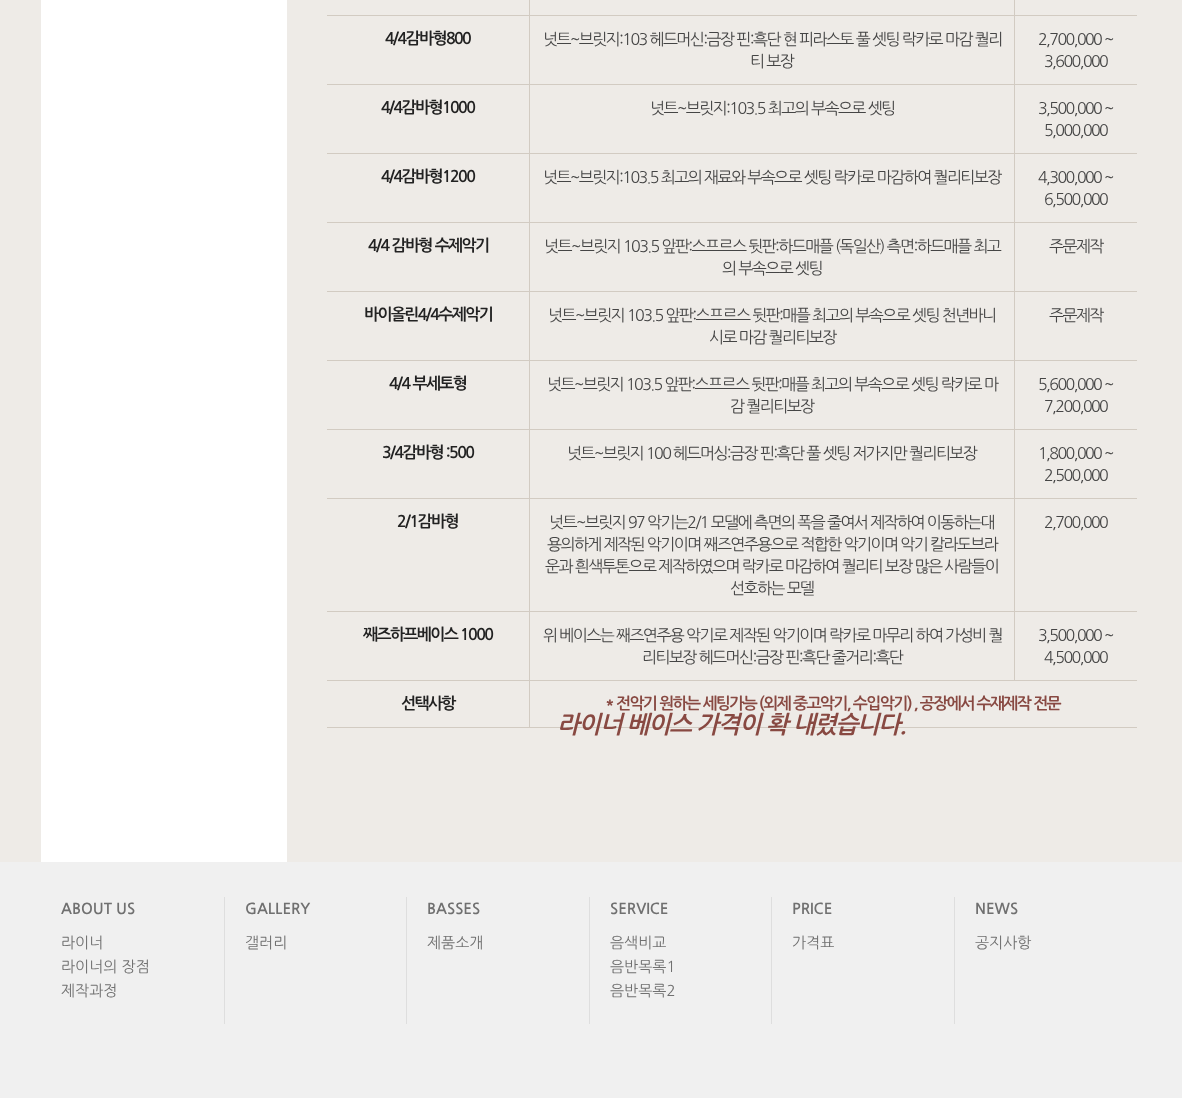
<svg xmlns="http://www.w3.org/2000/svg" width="1182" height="1098">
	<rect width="100%" height="100%" fill="#F0F0F0" />
	<rect x="0" y="0" width="1182" height="862" fill="#EEEBE7" />
	<rect x="41" y="0" width="246" height="862" fill="#FFFFFF" />
	<rect x="1014" y="15" width="123" height="1" fill="#D2CBC2" />
	<rect x="1014" y="84" width="123" height="1" fill="#D2CBC2" />
	<rect x="1014" y="153" width="123" height="1" fill="#D2CBC2" />
	<rect x="1014" y="222" width="123" height="1" fill="#D2CBC2" />
	<rect x="1014" y="291" width="123" height="1" fill="#D2CBC2" />
	<rect x="1014" y="360" width="123" height="1" fill="#D2CBC2" />
	<rect x="1014" y="429" width="123" height="1" fill="#D2CBC2" />
	<rect x="1014" y="498" width="123" height="1" fill="#D2CBC2" />
	<rect x="1014" y="611" width="123" height="1" fill="#D2CBC2" />
	<rect x="529" y="680" width="608" height="1" fill="#D2CBC2" />
	<rect x="1014" y="611" width="1" height="70" fill="#D2CBC2" />
	<rect x="529" y="611" width="486" height="1" fill="#D2CBC2" />
	<rect x="1014" y="498" width="1" height="114" fill="#D2CBC2" />
	<rect x="529" y="498" width="486" height="1" fill="#D2CBC2" />
	<rect x="1014" y="429" width="1" height="70" fill="#D2CBC2" />
	<rect x="529" y="429" width="486" height="1" fill="#D2CBC2" />
	<rect x="1014" y="360" width="1" height="70" fill="#D2CBC2" />
	<rect x="529" y="360" width="486" height="1" fill="#D2CBC2" />
	<rect x="1014" y="291" width="1" height="70" fill="#D2CBC2" />
	<rect x="529" y="291" width="486" height="1" fill="#D2CBC2" />
	<rect x="1014" y="222" width="1" height="70" fill="#D2CBC2" />
	<rect x="529" y="222" width="486" height="1" fill="#D2CBC2" />
	<rect x="1014" y="153" width="1" height="70" fill="#D2CBC2" />
	<rect x="529" y="153" width="486" height="1" fill="#D2CBC2" />
	<rect x="1014" y="84" width="1" height="70" fill="#D2CBC2" />
	<rect x="529" y="84" width="486" height="1" fill="#D2CBC2" />
	<rect x="1014" y="15" width="1" height="70" fill="#D2CBC2" />
	<rect x="529" y="15" width="486" height="1" fill="#D2CBC2" />
	<rect x="529" y="727" width="608" height="1" fill="#D2CBC2" />
	<rect x="529" y="680" width="1" height="48" fill="#D2CBC2" />
	<rect x="327" y="680" width="203" height="1" fill="#D2CBC2" />
	<rect x="529" y="611" width="1" height="70" fill="#D2CBC2" />
	<rect x="327" y="611" width="203" height="1" fill="#D2CBC2" />
	<rect x="529" y="498" width="1" height="114" fill="#D2CBC2" />
	<rect x="327" y="498" width="203" height="1" fill="#D2CBC2" />
	<rect x="529" y="429" width="1" height="70" fill="#D2CBC2" />
	<rect x="327" y="429" width="203" height="1" fill="#D2CBC2" />
	<rect x="529" y="360" width="1" height="70" fill="#D2CBC2" />
	<rect x="327" y="360" width="203" height="1" fill="#D2CBC2" />
	<rect x="529" y="291" width="1" height="70" fill="#D2CBC2" />
	<rect x="327" y="291" width="203" height="1" fill="#D2CBC2" />
	<rect x="529" y="222" width="1" height="70" fill="#D2CBC2" />
	<rect x="327" y="222" width="203" height="1" fill="#D2CBC2" />
	<rect x="529" y="153" width="1" height="70" fill="#D2CBC2" />
	<rect x="327" y="153" width="203" height="1" fill="#D2CBC2" />
	<rect x="529" y="84" width="1" height="70" fill="#D2CBC2" />
	<rect x="327" y="84" width="203" height="1" fill="#D2CBC2" />
	<rect x="529" y="15" width="1" height="70" fill="#D2CBC2" />
	<rect x="327" y="15" width="203" height="1" fill="#D2CBC2" />
	<rect x="529" y="0" width="1" height="16" fill="#D2CBC2" />
	<rect x="1014" y="0" width="1" height="16" fill="#D2CBC2" />
	<text x="385" y="44" font-family="NanumGothic" font-size="16" font-weight="700" letter-spacing="-1.6" fill="#222222">4/4감바형800</text>
	<g font-family="NanumGothic" font-size="16" letter-spacing="-1.6" fill="#454545">
		<text x="543" y="45">넛트~브릿지:103 헤드머신:금장 핀:흑단 현 피라스토 풀 셋팅 락카로 마감 퀄리</text>
		<text x="750" y="67">티 보장</text>
		<text x="1038" y="45">2,700,000 ~</text>
		<text x="1044" y="67">3,600,000</text>
	</g>
	<text x="381" y="113" font-family="NanumGothic" font-size="16" font-weight="700" letter-spacing="-1.6" fill="#222222">4/4감바형1000</text>
	<g font-family="NanumGothic" font-size="16" letter-spacing="-1.6" fill="#454545">
		<text x="650" y="114">넛트~브릿지:103.5 최고의 부속으로 셋팅</text>
		<text x="1038" y="114">3,500,000 ~</text>
		<text x="1044" y="136">5,000,000</text>
	</g>
	<text x="381" y="182" font-family="NanumGothic" font-size="16" font-weight="700" letter-spacing="-1.6" fill="#222222">4/4감바형1200</text>
	<g font-family="NanumGothic" font-size="16" letter-spacing="-1.6" fill="#454545">
		<text x="543" y="183">넛트~브릿지:103.5 최고의 재료와 부속으로 셋팅 락카로 마감하여 퀄리티보장</text>
		<text x="1038" y="183">4,300,000 ~</text>
		<text x="1044" y="205">6,500,000</text>
	</g>
	<text x="368" y="251" font-family="NanumGothic" font-size="16" font-weight="700" letter-spacing="-1.6" fill="#222222">4/4 감바형 수제악기</text>
	<g font-family="NanumGothic" font-size="16" letter-spacing="-1.6" fill="#454545">
		<text x="544" y="252">넛트~브릿지 103.5 앞판:스프르스 뒷판:하드매플 (독일산) 측면:하드매플 최고</text>
		<text x="722" y="274">의 부속으로 셋팅</text>
		<text x="1049" y="252">주문제작</text>
	</g>
	<text x="364" y="320" font-family="NanumGothic" font-size="16" font-weight="700" letter-spacing="-1.6" fill="#222222">바이올린4/4수제악기</text>
	<g font-family="NanumGothic" font-size="16" letter-spacing="-1.6" fill="#454545">
		<text x="548" y="321">넛트~브릿지 103.5 앞판:스프르스 뒷판:매플 최고의 부속으로 셋팅 천년바니</text>
		<text x="709" y="343">시로 마감 퀄리티보장</text>
		<text x="1049" y="321">주문제작</text>
	</g>
	<text x="389" y="389" font-family="NanumGothic" font-size="16" font-weight="700" letter-spacing="-1.6" fill="#222222">4/4 부세토형</text>
	<g font-family="NanumGothic" font-size="16" letter-spacing="-1.6" fill="#454545">
		<text x="547" y="390">넛트~브릿지 103.5 앞판:스프르스 뒷판:매플 최고의 부속으로 셋팅 락카로 마</text>
		<text x="730" y="412">감 퀄리티보장</text>
		<text x="1038" y="390">5,600,000 ~</text>
		<text x="1044" y="412">7,200,000</text>
	</g>
	<text x="382" y="458" font-family="NanumGothic" font-size="16" font-weight="700" letter-spacing="-1.6" fill="#222222">3/4감바형 :500</text>
	<g font-family="NanumGothic" font-size="16" letter-spacing="-1.6" fill="#454545">
		<text x="567" y="459">넛트~브릿지 100 헤드머싱:금장 핀:흑단 풀 셋팅 저가지만 퀄리티보장</text>
		<text x="1038" y="459">1,800,000 ~</text>
		<text x="1044" y="481">2,500,000</text>
	</g>
	<text x="397" y="527" font-family="NanumGothic" font-size="16" font-weight="700" letter-spacing="-1.6" fill="#222222">2/1감바형</text>
	<g font-family="NanumGothic" font-size="16" letter-spacing="-1.6" fill="#454545">
		<text x="549" y="528">넛트~브릿지 97 악기는2/1 모댈에 측면의 폭을 줄여서 제작하여 이동하는대</text>
		<text x="547" y="550">용의하게 제작된 악기이며 째즈연주용으로 적합한 악기이며 악기 칼라도브라</text>
		<text x="545" y="572">운과 흰색투톤으로 제작하였으며 락카로 마감하여 퀄리티 보장 많은 사람들이</text>
		<text x="730" y="594">선호하는 모델</text>
		<text x="1044" y="528">2,700,000</text>
	</g>
	<text x="363" y="640" font-family="NanumGothic" font-size="16" font-weight="700" letter-spacing="-1.6" fill="#222222">째즈하프베이스 1000</text>
	<g font-family="NanumGothic" font-size="16" letter-spacing="-1.6" fill="#454545">
		<text x="543" y="641">위 베이스는 째즈연주용 악기로 제작된 악기이며 락카로 마무리 하여 가성비 퀄</text>
		<text x="642" y="663">리티보장 헤드머신:금장 핀:흑단 줄거리:흑단</text>
		<text x="1038" y="641">3,500,000 ~</text>
		<text x="1044" y="663">4,500,000</text>
	</g>
	<rect x="327" y="727" width="203" height="1" fill="#D2CBC2" />
	<text x="401" y="709" font-family="NanumGothic" font-size="16" font-weight="700" letter-spacing="-1.6" fill="#222222">선택사항</text>
	<text x="605" y="709" font-family="NanumGothic" font-size="16" font-weight="700" letter-spacing="-1.6" fill="#884942">* 전악기 원하는 세팅가능 (외제 중고악기, 수입악기) , 공장에서 수재제작 전문</text>
	<text x="557" y="733" font-family="NanumGothic" font-size="24" font-weight="700" font-style="italic" letter-spacing="-1.2" fill="#884942">라이너 베이스 가격이 확 내렸습니다.</text>
	<text x="61" y="914" font-family="NanumGothic" font-size="15" font-weight="700" fill="#707070">ABOUT US</text>
	<g font-family="NanumGothic" font-size="15" fill="#707070">
		<text x="61" y="948">라이너</text>
		<text x="61" y="972">라이너의 장점</text>
		<text x="61" y="996">제작과정</text>
	</g>
	<rect x="224" y="897" width="1" height="127" fill="#DEDEDE" />
	<text x="245" y="914" font-family="NanumGothic" font-size="15" font-weight="700" fill="#707070">GALLERY</text>
	<text x="245" y="948" font-family="NanumGothic" font-size="15" fill="#707070">갤러리</text>
	<rect x="406" y="897" width="1" height="127" fill="#DEDEDE" />
	<text x="427" y="914" font-family="NanumGothic" font-size="15" font-weight="700" fill="#707070">BASSES</text>
	<text x="427" y="948" font-family="NanumGothic" font-size="15" fill="#707070">제품소개</text>
	<rect x="589" y="897" width="1" height="127" fill="#DEDEDE" />
	<text x="610" y="914" font-family="NanumGothic" font-size="15" font-weight="700" fill="#707070">SERVICE</text>
	<g font-family="NanumGothic" font-size="15" fill="#707070">
		<text x="610" y="948">음색비교</text>
		<text x="610" y="972">음반목록1</text>
		<text x="610" y="996">음반목록2</text>
	</g>
	<rect x="771" y="897" width="1" height="127" fill="#DEDEDE" />
	<text x="792" y="914" font-family="NanumGothic" font-size="15" font-weight="700" fill="#707070">PRICE</text>
	<text x="792" y="948" font-family="NanumGothic" font-size="15" fill="#707070">가격표</text>
	<rect x="954" y="897" width="1" height="127" fill="#DEDEDE" />
	<text x="975" y="914" font-family="NanumGothic" font-size="15" font-weight="700" fill="#707070">NEWS</text>
	<text x="975" y="948" font-family="NanumGothic" font-size="15" fill="#707070">공지사항</text>
</svg>
